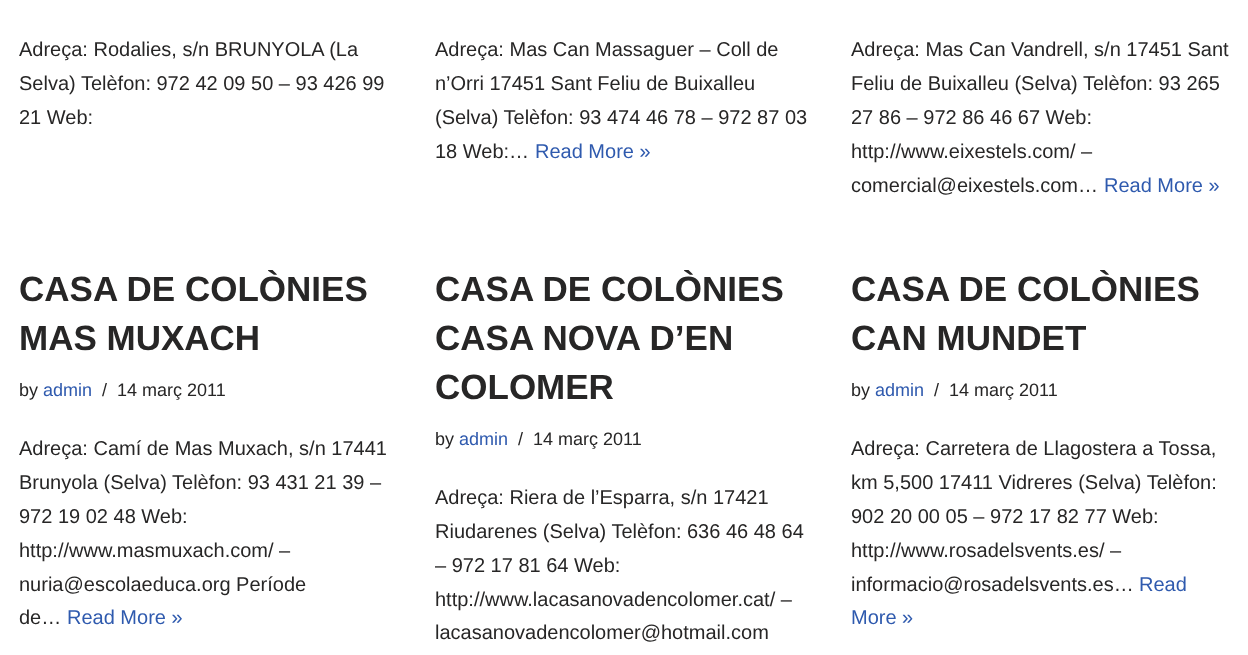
<svg xmlns="http://www.w3.org/2000/svg" width="1248" height="655">
	<rect width="100%" height="100%" fill="#FFFFFF" />
	<g font-family="Liberation Sans" font-size="20" fill="#272626">
		<text x="19" y="56">Adreça: Rodalies, s/n BRUNYOLA (La</text>
		<text x="19" y="90">Selva) Telèfon: 972 42 09 50 – 93 426 99</text>
		<text x="19" y="124">21 Web:</text>
		<text x="435" y="56">Adreça: Mas Can Massaguer – Coll de</text>
		<text x="435" y="90">n’Orri 17451 Sant Feliu de Buixalleu</text>
		<text x="435" y="124">(Selva) Telèfon: 93 474 46 78 – 972 87 03</text>
		<text x="435" y="158">18 Web:…</text>
	</g>
	<text x="535" y="158" font-family="Liberation Sans" font-size="20" fill="#2F5AAE">Read More »</text>
	<g font-family="Liberation Sans" font-size="20" fill="#272626">
		<text x="851" y="56">Adreça: Mas Can Vandrell, s/n 17451 Sant</text>
		<text x="851" y="90">Feliu de Buixalleu (Selva) Telèfon: 93 265</text>
		<text x="851" y="124">27 86 – 972 86 46 67 Web:</text>
		<text x="851" y="158">http://www.eixestels.com/ –</text>
		<text x="851" y="192">comercial@eixestels.com…</text>
	</g>
	<text x="1104" y="192" font-family="Liberation Sans" font-size="20" fill="#2F5AAE">Read More »</text>
	<g font-family="Liberation Sans" font-size="35" font-weight="700" fill="#272626">
		<text x="19" y="301">CASA DE COLÒNIES</text>
		<text x="19" y="350">MAS MUXACH</text>
	</g>
	<text x="19" y="396" font-family="Liberation Sans" font-size="18" fill="#272626">by</text>
	<text x="43" y="396" font-family="Liberation Sans" font-size="18" fill="#2F5AAE">admin</text>
	<g font-family="Liberation Sans" font-size="18" fill="#272626">
		<text x="102" y="396">/</text>
		<text x="117" y="396">14 març 2011</text>
	</g>
	<g font-family="Liberation Sans" font-size="20" fill="#272626">
		<text x="19" y="455">Adreça: Camí de Mas Muxach, s/n 17441</text>
		<text x="19" y="489">Brunyola (Selva) Telèfon: 93 431 21 39 –</text>
		<text x="19" y="523">972 19 02 48 Web:</text>
		<text x="19" y="557">http://www.masmuxach.com/ –</text>
		<text x="19" y="591">nuria@escolaeduca.org Període</text>
		<text x="19" y="624">de…</text>
	</g>
	<text x="67" y="624" font-family="Liberation Sans" font-size="20" fill="#2F5AAE">Read More »</text>
	<g font-family="Liberation Sans" font-size="35" font-weight="700" fill="#272626">
		<text x="435" y="301">CASA DE COLÒNIES</text>
		<text x="435" y="350">CASA NOVA D’EN</text>
		<text x="435" y="399">COLOMER</text>
	</g>
	<text x="435" y="445" font-family="Liberation Sans" font-size="18" fill="#272626">by</text>
	<text x="459" y="445" font-family="Liberation Sans" font-size="18" fill="#2F5AAE">admin</text>
	<g font-family="Liberation Sans" font-size="18" fill="#272626">
		<text x="518" y="445">/</text>
		<text x="533" y="445">14 març 2011</text>
	</g>
	<g font-family="Liberation Sans" font-size="20" fill="#272626">
		<text x="435" y="504">Adreça: Riera de l’Esparra, s/n 17421</text>
		<text x="435" y="538">Riudarenes (Selva) Telèfon: 636 46 48 64</text>
		<text x="435" y="572">– 972 17 81 64 Web:</text>
		<text x="435" y="606">http://www.lacasanovadencolomer.cat/ –</text>
		<text x="435" y="639">lacasanovadencolomer@hotmail.com</text>
	</g>
	<g font-family="Liberation Sans" font-size="35" font-weight="700" fill="#272626">
		<text x="851" y="301">CASA DE COLÒNIES</text>
		<text x="851" y="350">CAN MUNDET</text>
	</g>
	<text x="851" y="396" font-family="Liberation Sans" font-size="18" fill="#272626">by</text>
	<text x="875" y="396" font-family="Liberation Sans" font-size="18" fill="#2F5AAE">admin</text>
	<g font-family="Liberation Sans" font-size="18" fill="#272626">
		<text x="934" y="396">/</text>
		<text x="949" y="396">14 març 2011</text>
	</g>
	<g font-family="Liberation Sans" font-size="20" fill="#272626">
		<text x="851" y="455">Adreça: Carretera de Llagostera a Tossa,</text>
		<text x="851" y="489">km 5,500 17411 Vidreres (Selva) Telèfon:</text>
		<text x="851" y="523">902 20 00 05 – 972 17 82 77 Web:</text>
		<text x="851" y="557">http://www.rosadelsvents.es/ –</text>
		<text x="851" y="591">informacio@rosadelsvents.es…</text>
	</g>
	<g font-family="Liberation Sans" font-size="20" fill="#2F5AAE">
		<text x="1139" y="591">Read</text>
		<text x="851" y="624">More »</text>
	</g>
</svg>
